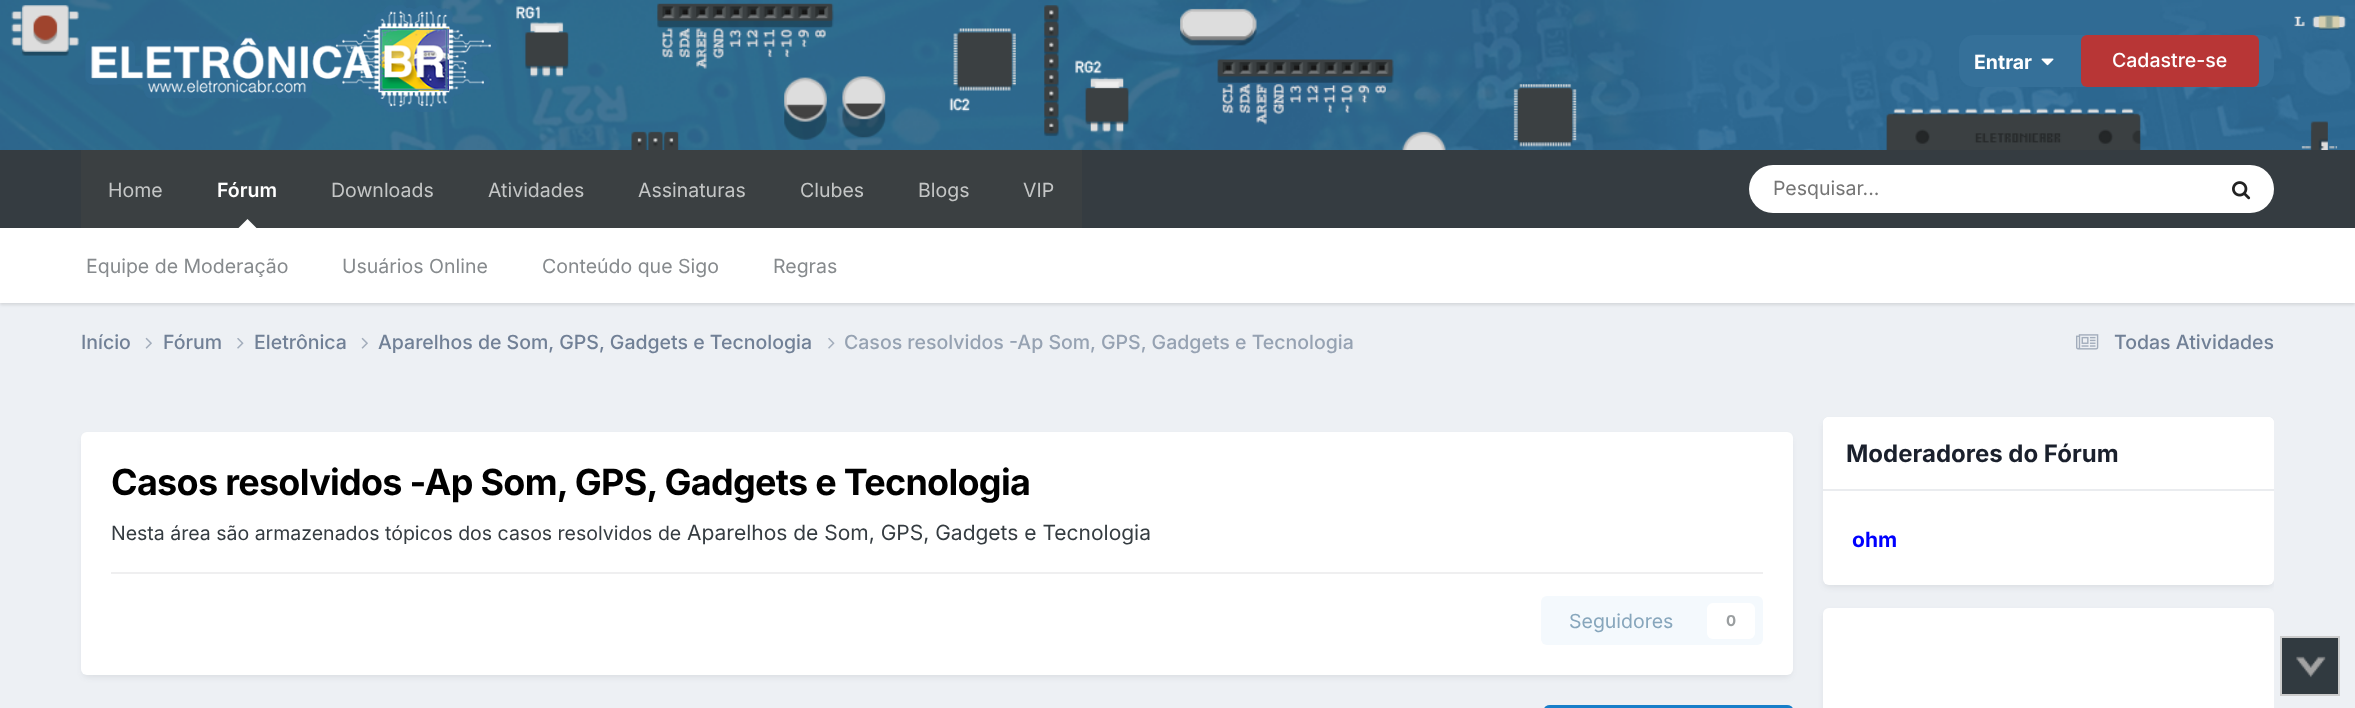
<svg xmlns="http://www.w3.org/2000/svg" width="2355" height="708">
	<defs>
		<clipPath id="clip1"><rect x="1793" y="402" width="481" height="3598" /></clipPath>
	</defs>
	<rect width="100%" height="100%" fill="#EDF0F4" />
	<image x="0" y="0" width="2355" height="150" href="assets/img1.png" />
	<image x="85" y="5" width="412" height="107" href="assets/img2.png" />
	<rect x="1959" y="35" width="315" height="52" rx="15" fill="#357099" />
	<text x="1974" y="69" font-family="Inter" font-size="19.5" font-weight="700" fill="#FFFFFF">Entrar</text>
	<image x="2041" y="58" width="13" height="8" href="assets/img3.png" />
	<rect x="2081" y="35" width="178" height="52" rx="6" fill="#B83636" />
	<text x="2112" y="67" font-family="Inter" font-size="19.5" font-weight="500" fill="#FFFFFF">Cadastre-se</text>
	<rect x="0" y="150" width="2355" height="78" fill="#353C41" />
	<rect x="0" y="230" width="2355" height="75" fill="#000000" fill-opacity="0.1" filter="blur(1.5px)" />
	<rect x="81" y="150" width="1001" height="78" fill="#3B4042" />
	<text x="217" y="197" font-family="Inter" font-size="19.5" font-weight="600" fill="#FFFFFF">Fórum</text>
	<path d="M256.5 228H238.5L247.5 219Z" fill="#FFFFFF" />
	<rect x="0" y="228" width="2355" height="75" fill="#FFFFFF" />
	<g font-family="Inter" font-size="19.5" fill="#868A8D">
		<text x="86" y="273">Equipe de Moderação</text>
		<text x="342" y="273">Usuários Online</text>
		<text x="542" y="273">Conteúdo que Sigo</text>
		<text x="773" y="273">Regras</text>
	</g>
	<g font-family="Inter" font-size="19.5" fill="#C4C6C6">
		<text x="108" y="197">Home</text>
		<text x="331" y="197">Downloads</text>
		<text x="488" y="197">Atividades</text>
		<text x="638" y="197">Assinaturas</text>
		<text x="800" y="197">Clubes</text>
		<text x="918" y="197">Blogs</text>
		<text x="1023" y="197">VIP</text>
	</g>
	<rect x="1749" y="165" width="525" height="48" rx="24" fill="#FFFFFF" />
	<text x="1773" y="195" font-family="Inter" font-size="19.5" fill="#757575">Pesquisar...</text>
	<image x="2232" y="181" width="19" height="19" href="assets/img4.png" />
	<text x="81" y="349" font-family="Inter" font-size="19.5" font-weight="500" fill="#718096">Início</text>
	<image x="145" y="337" width="7" height="12" href="assets/img5.png" />
	<text x="163" y="349" font-family="Inter" font-size="19.5" font-weight="500" fill="#718096">Fórum</text>
	<image x="237" y="338" width="7" height="11" href="assets/img6.png" />
	<text x="254" y="349" font-family="Inter" font-size="19.5" font-weight="500" fill="#718096">Eletrônica</text>
	<image x="361" y="337" width="7" height="12" href="assets/img5.png" />
	<text x="378" y="349" font-family="Inter" font-size="19.5" font-weight="500" fill="#718096">Aparelhos de Som, GPS, Gadgets e Tecnologia</text>
	<image x="828" y="338" width="7" height="11" href="assets/img6.png" />
	<text x="844" y="349" font-family="Inter" font-size="19.5" font-weight="500" fill="#96A2B2">Casos resolvidos -Ap Som, GPS, Gadgets e Tecnologia</text>
	<image x="2076" y="334" width="23" height="16" href="assets/img7.png" />
	<text x="2114" y="349" font-family="Inter" font-size="19.5" font-weight="500" fill="#718096">Todas Atividades</text>
	<rect x="83" y="437" width="1708" height="240" rx="5" fill="#2D3748" fill-opacity="0.1" filter="blur(3px)" />
	<rect x="81" y="432" width="1712" height="243" rx="6" fill="#FFFFFF" />
	<text x="111" y="495" font-family="Inter" font-size="36" font-weight="700" letter-spacing="-0.72" fill="#000000">Casos resolvidos -Ap Som, GPS, Gadgets e Tecnologia</text>
	<text x="111" y="540" font-family="Inter" font-size="19.5" fill="#353C41">Nesta área são armazenados tópicos dos casos resolvidos de</text>
	<text x="687" y="540" font-family="Inter" font-size="21" fill="#353C41">Aparelhos de Som, GPS, Gadgets e Tecnologia</text>
	<rect x="111" y="572" width="1652" height="2" fill="#EFEFF0" />
	<rect x="1541" y="596" width="222" height="49" rx="6" fill="#F4F9FD" />
	<text x="1569" y="628" font-family="Inter" font-size="19.5" fill="#87A6BC">Seguidores</text>
	<rect x="1707" y="603" width="48" height="36" rx="6" fill="#FFFFFF" />
	<text x="1726" y="626" font-family="Inter" font-size="15" font-weight="700" fill="#9A9EA0">0</text>
	<rect x="1544" y="705" width="249" height="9" rx="6" fill="#177EC9" />
	<g clip-path="url(#clip1)">
		<rect x="1824" y="422" width="449" height="165" rx="5" fill="#2D3748" fill-opacity="0.1" filter="blur(3px)" />
	</g>
	<rect x="1823" y="417" width="451" height="168" rx="6" fill="#FFFFFF" />
	<path d="M1829 417H2268C2271.5 417 2274 419.5 2274 423V491H1823V423C1823 419.5 1825.5 417 1829 417Z" fill="#FFFFFF" />
	<rect x="1823" y="489" width="451" height="2" fill="#EAECEF" />
	<text x="1846" y="462" font-family="Inter" font-size="24" font-weight="700" fill="#1A202C">Moderadores do Fórum</text>
	<text x="1852" y="547" font-family="Inter" font-size="21" font-weight="700" fill="#0000FF">ohm</text>
	<g clip-path="url(#clip1)">
		<rect x="1824" y="612" width="449" height="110" rx="5" fill="#2D3748" fill-opacity="0.1" filter="blur(3px)" />
	</g>
	<rect x="1823" y="608" width="451" height="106" rx="6" fill="#FFFFFF" />
	<rect x="2282" y="638" width="56" height="56" fill="#313A40" />
	<image x="2296" y="656" width="30" height="22" href="assets/img8.png" />
	<rect x="2281" y="637" width="58" height="58" fill="none" stroke="#CCCCCC" stroke-width="2" />
</svg>
